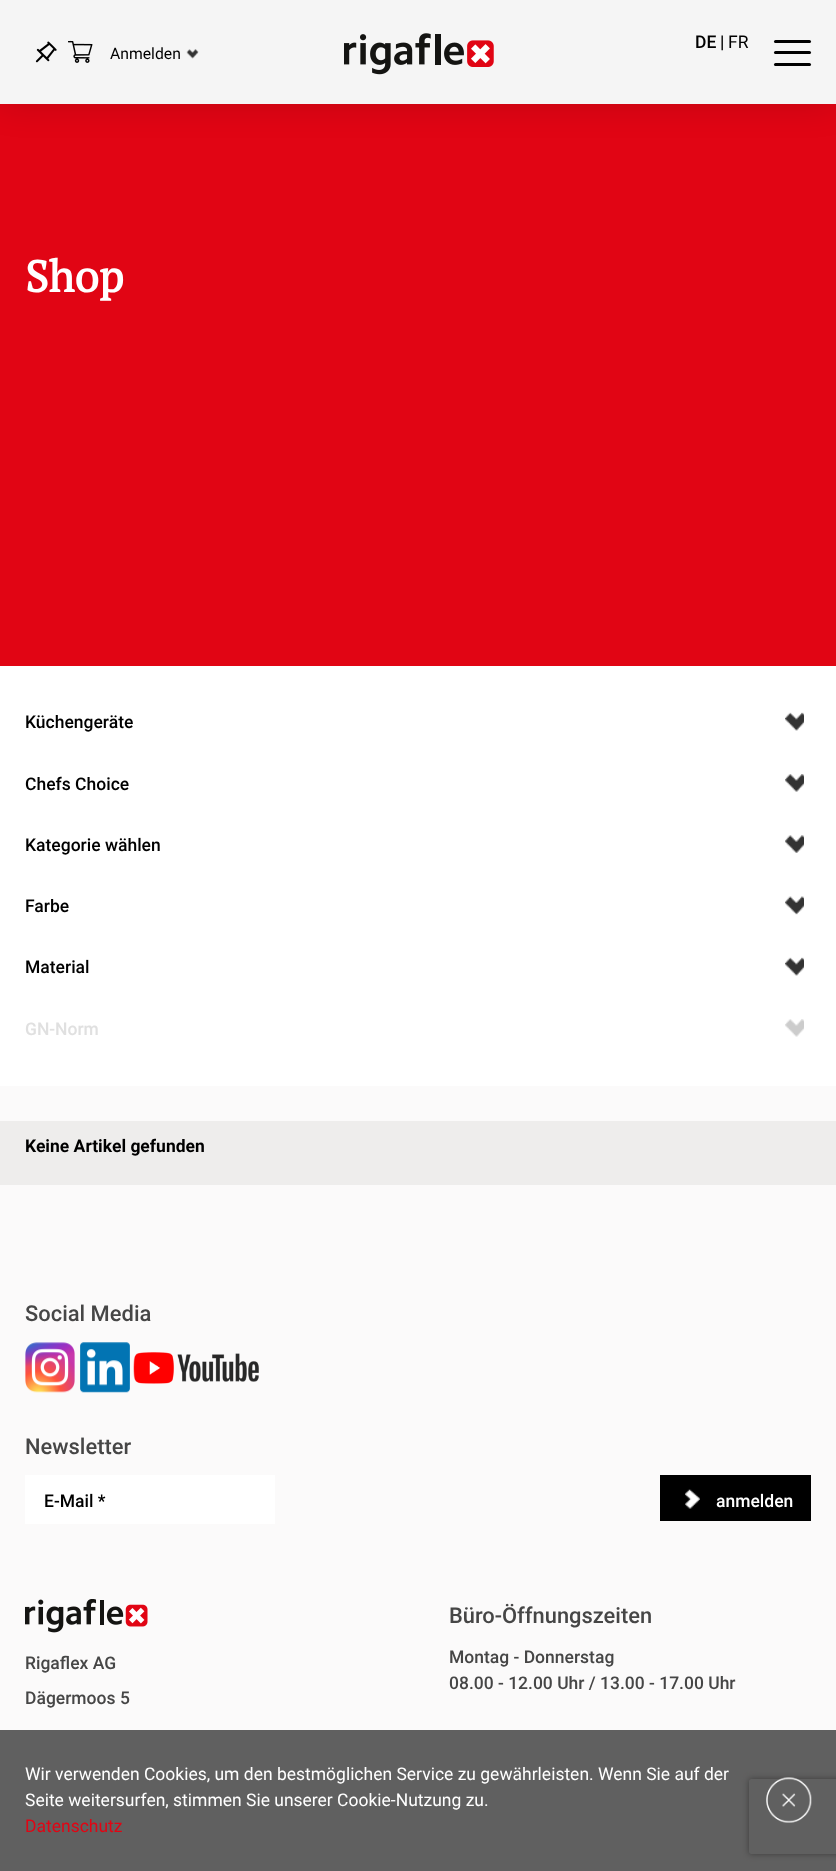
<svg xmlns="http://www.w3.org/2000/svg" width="836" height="1871">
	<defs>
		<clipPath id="clip1"><path d="M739 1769H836V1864H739ZM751.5 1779H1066.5C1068 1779 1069 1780 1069 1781.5V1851.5C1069 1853 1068 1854 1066.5 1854H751.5C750 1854 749 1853 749 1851.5V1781.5C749 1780 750 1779 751.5 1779Z" clip-rule="evenodd" /></clipPath>
	</defs>
	<rect width="100%" height="100%" fill="#FBFAFA" />
	<rect x="0" y="104" width="836" height="562" fill="#E10514" />
	<rect x="0" y="-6" width="836" height="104" fill="#000000" fill-opacity="0.2" filter="blur(19px)" />
	<rect x="0" y="0" width="836" height="104" fill="#F5F5F5" />
	<image x="35" y="41" width="22" height="22" href="assets/img1.png" />
	<image x="68" y="40" width="25" height="23" href="assets/img2.png" />
	<text x="110" y="59" font-family="Roboto" font-size="15.75" fill="#000000">Anmelden</text>
	<image x="186" y="49" width="13" height="10" href="assets/img3.png" />
	<image x="344" y="33" width="150" height="42" href="assets/img4.png" />
	<g font-family="Roboto" font-size="17.5" font-weight="500" fill="#000000">
		<text x="695" y="48">DE</text>
		<text x="720" y="48">|</text>
	</g>
	<text x="728" y="48" font-family="Roboto" font-size="17.5" fill="#000000">FR</text>
	<rect x="774" y="51" width="37" height="3" rx="1.5" fill="#000000" />
	<rect x="774" y="40" width="37" height="3" rx="1.5" fill="#000000" />
	<rect x="774" y="63" width="37" height="3" rx="1.5" fill="#000000" />
	<text x="25" y="292" font-family="PT Serif" font-size="44" font-weight="700" fill="#FFFFFF">Shop</text>
	<rect x="0" y="1121" width="836" height="64" fill="#EEEDEC" />
	<rect x="0" y="666" width="836" height="420" fill="#FFFFFF" />
	<text x="25" y="728" font-family="Roboto" font-size="17.5" font-weight="500" fill="#000000">Küchengeräte</text>
	<image x="785" y="712" width="19" height="19" href="assets/img5.png" />
	<text x="25" y="790" font-family="Roboto" font-size="17.5" font-weight="500" fill="#000000">Chefs Choice</text>
	<image x="785" y="774" width="19" height="18" href="assets/img6.png" />
	<text x="25" y="851" font-family="Roboto" font-size="17.5" font-weight="500" fill="#000000">Kategorie wählen</text>
	<image x="785" y="835" width="19" height="18" href="assets/img7.png" />
	<text x="25" y="912" font-family="Roboto" font-size="17.5" font-weight="500" fill="#000000">Farbe</text>
	<image x="785" y="896" width="19" height="19" href="assets/img8.png" />
	<text x="25" y="973" font-family="Roboto" font-size="17.5" font-weight="500" fill="#000000">Material</text>
	<image x="785" y="957" width="19" height="19" href="assets/img5.png" />
	<text x="25" y="1035" font-family="Roboto" font-size="17.5" font-weight="500" fill="#E0E0E0">GN-Norm</text>
	<image x="785" y="1019" width="19" height="18" href="assets/img9.png" />
	<text x="25" y="1152" font-family="Roboto" font-size="17.5" font-weight="700" fill="#000000">Keine Artikel gefunden</text>
	<text x="25" y="1321" font-family="Roboto" font-size="21.9" font-weight="500" fill="#464646">Social Media</text>
	<image x="25" y="1342" width="50" height="51" href="assets/img10.png" />
	<image x="80" y="1342" width="50" height="51" href="assets/img11.png" />
	<image x="133" y="1352" width="126" height="32" href="assets/img12.png" />
	<text x="25" y="1454" font-family="Roboto" font-size="21.9" font-weight="500" fill="#464646">Newsletter</text>
	<rect x="25" y="1475" width="250" height="49" fill="#FFFFFF" />
	<text x="44" y="1507" font-family="Roboto" font-size="17.5" font-weight="500" fill="#000000">E-Mail *</text>
	<rect x="660" y="1475" width="151" height="46" fill="#000000" />
	<image x="685" y="1489" width="15" height="20" href="assets/img13.png" />
	<text x="716" y="1507" font-family="Roboto" font-size="17.5" font-weight="500" fill="#FFFFFF">anmelden</text>
	<image x="25" y="1599" width="123" height="34" href="assets/img14.png" />
	<g font-family="Roboto" font-size="17.5" font-weight="500" fill="#464646">
		<text x="25" y="1669">Rigaflex AG</text>
		<text x="25" y="1704">Dägermoos 5</text>
	</g>
	<text x="449" y="1623" font-family="Roboto" font-size="21.9" font-weight="500" fill="#464646">Büro-Öffnungszeiten</text>
	<g font-family="Roboto" font-size="17.5" font-weight="500" fill="#464646">
		<text x="449" y="1663">Montag - Donnerstag</text>
		<text x="449" y="1689">08.00 - 12.00 Uhr / 13.00 - 17.00 Uhr</text>
	</g>
	<g clip-path="url(#clip1)">
		<rect x="749" y="1779" width="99" height="75" rx="2.5" fill="#808080" filter="blur(3px)" />
	</g>
	<rect x="0" y="1730" width="836" height="141" fill="#1E1E1E" fill-opacity="0.7" />
	<g font-family="Roboto" font-size="17.5" fill="#FFFFFF">
		<text x="25" y="1780">Wir verwenden Cookies, um den bestmöglichen Service zu gewährleisten. Wenn Sie auf der</text>
		<text x="25" y="1806">Seite weitersurfen, stimmen Sie unserer Cookie-Nutzung zu.</text>
	</g>
	<text x="25" y="1832" font-family="Roboto" font-size="17.5" fill="#E10514">Datenschutz</text>
	<image x="766" y="1777" width="46" height="46" href="assets/img15.png" />
</svg>
